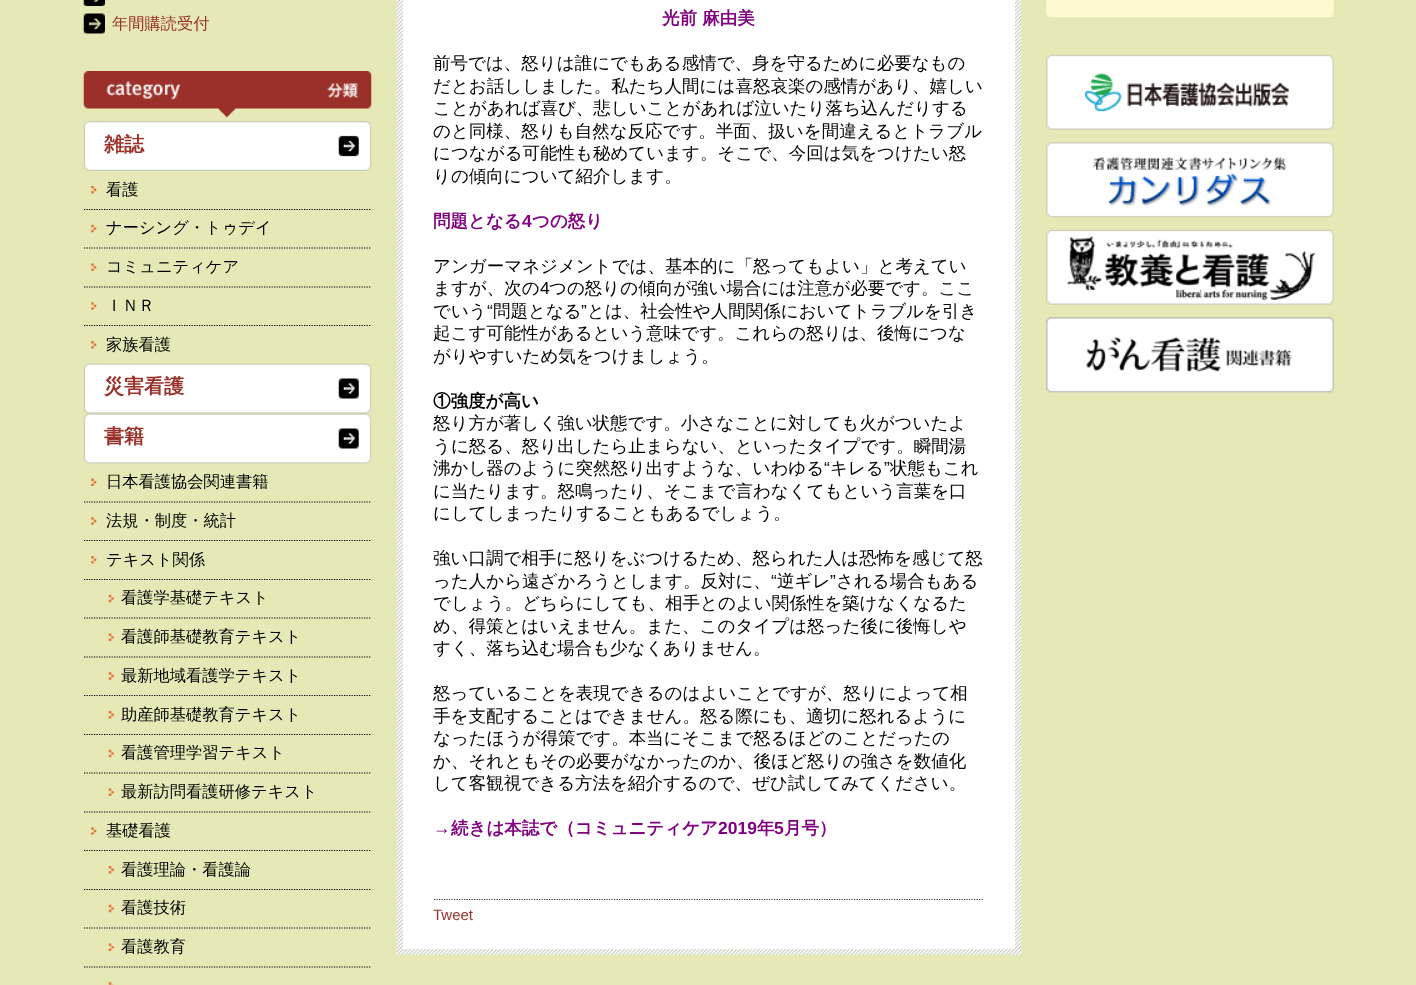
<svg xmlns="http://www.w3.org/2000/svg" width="1416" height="985">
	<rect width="100%" height="100%" fill="#E6E9B5" />
	<image x="83" y="0" width="22" height="6" href="assets/img1.png" />
	<image x="83" y="13" width="22" height="21" href="assets/img2.png" />
	<text x="112" y="29" font-family="WenQuanYi Zen Hei" font-size="16.25" font-weight="500" fill="#9A3029">年間購読受付</text>
	<image x="83" y="71" width="289" height="47" href="assets/img3.png" />
	<image x="83" y="121" width="289" height="50" href="assets/img4.png" />
	<text x="104" y="151" font-family="WenQuanYi Zen Hei" font-size="20" font-weight="700" fill="#9A3029">雑誌</text>
	<image x="91" y="186" width="6" height="8" href="assets/img5.png" />
	<text x="106" y="195" font-family="WenQuanYi Zen Hei" font-size="16.25" font-weight="500" fill="#000000">看護</text>
	<image x="91" y="224" width="6" height="9" href="assets/img6.png" />
	<path d="M84 209.5H371" fill="none" stroke="#000000" stroke-width="1.2" stroke-dasharray="1.25 1.25" />
	<text x="106" y="233" font-family="WenQuanYi Zen Hei" font-size="16.25" font-weight="500" fill="#000000">ナーシング・トゥデイ</text>
	<image x="91" y="263" width="6" height="8" href="assets/img7.png" />
	<path d="M84 248H371" fill="none" stroke="#000000" stroke-width="1.2" stroke-dasharray="1.25 1.25" />
	<text x="106" y="272" font-family="WenQuanYi Zen Hei" font-size="16.25" font-weight="500" fill="#000000">コミュニティケア</text>
	<image x="91" y="302" width="6" height="8" href="assets/img8.png" />
	<path d="M84 287H371" fill="none" stroke="#000000" stroke-width="1.2" stroke-dasharray="1.25 1.25" />
	<text x="106" y="311" font-family="WenQuanYi Zen Hei" font-size="16.25" font-weight="500" fill="#000000">ＩＮＲ</text>
	<image x="91" y="341" width="6" height="8" href="assets/img9.png" />
	<path d="M84 325.5H371" fill="none" stroke="#000000" stroke-width="1.2" stroke-dasharray="1.25 1.25" />
	<text x="106" y="350" font-family="WenQuanYi Zen Hei" font-size="16.25" font-weight="500" fill="#000000">家族看護</text>
	<image x="83" y="363" width="289" height="51" href="assets/img10.png" />
	<text x="104" y="393" font-family="WenQuanYi Zen Hei" font-size="20" font-weight="700" fill="#9A3029">災害看護</text>
	<image x="83" y="413" width="289" height="51" href="assets/img11.png" />
	<text x="104" y="443" font-family="WenQuanYi Zen Hei" font-size="20" font-weight="700" fill="#9A3029">書籍</text>
	<image x="91" y="478" width="6" height="8" href="assets/img7.png" />
	<text x="106" y="487" font-family="WenQuanYi Zen Hei" font-size="16.25" font-weight="500" fill="#000000">日本看護協会関連書籍</text>
	<image x="91" y="517" width="6" height="8" href="assets/img8.png" />
	<path d="M84 502H371" fill="none" stroke="#000000" stroke-width="1.2" stroke-dasharray="1.25 1.25" />
	<text x="106" y="526" font-family="WenQuanYi Zen Hei" font-size="16.25" font-weight="500" fill="#000000">法規・制度・統計</text>
	<image x="91" y="556" width="6" height="8" href="assets/img5.png" />
	<path d="M84 540.5H371" fill="none" stroke="#000000" stroke-width="1.2" stroke-dasharray="1.25 1.25" />
	<text x="106" y="565" font-family="WenQuanYi Zen Hei" font-size="16.25" font-weight="500" fill="#000000">テキスト関係</text>
	<image x="108" y="594" width="6" height="9" href="assets/img12.png" />
	<path d="M84 579.5H371" fill="none" stroke="#000000" stroke-width="1.2" stroke-dasharray="1.25 1.25" />
	<text x="121" y="603" font-family="WenQuanYi Zen Hei" font-size="16.25" font-weight="500" fill="#000000">看護学基礎テキスト</text>
	<image x="108" y="633" width="6" height="8" href="assets/img13.png" />
	<path d="M84 618H371" fill="none" stroke="#000000" stroke-width="1.2" stroke-dasharray="1.25 1.25" />
	<text x="121" y="642" font-family="WenQuanYi Zen Hei" font-size="16.25" font-weight="500" fill="#000000">看護師基礎教育テキスト</text>
	<image x="108" y="672" width="6" height="8" href="assets/img14.png" />
	<path d="M84 657H371" fill="none" stroke="#000000" stroke-width="1.2" stroke-dasharray="1.25 1.25" />
	<text x="121" y="681" font-family="WenQuanYi Zen Hei" font-size="16.25" font-weight="500" fill="#000000">最新地域看護学テキスト</text>
	<image x="108" y="711" width="6" height="8" href="assets/img15.png" />
	<path d="M84 695.5H371" fill="none" stroke="#000000" stroke-width="1.2" stroke-dasharray="1.25 1.25" />
	<text x="121" y="720" font-family="WenQuanYi Zen Hei" font-size="16.25" font-weight="500" fill="#000000">助産師基礎教育テキスト</text>
	<image x="108" y="749" width="6" height="9" href="assets/img12.png" />
	<path d="M84 734.5H371" fill="none" stroke="#000000" stroke-width="1.2" stroke-dasharray="1.25 1.25" />
	<text x="121" y="758" font-family="WenQuanYi Zen Hei" font-size="16.25" font-weight="500" fill="#000000">看護管理学習テキスト</text>
	<image x="108" y="788" width="6" height="8" href="assets/img13.png" />
	<path d="M84 773H371" fill="none" stroke="#000000" stroke-width="1.2" stroke-dasharray="1.25 1.25" />
	<text x="121" y="797" font-family="WenQuanYi Zen Hei" font-size="16.25" font-weight="500" fill="#000000">最新訪問看護研修テキスト</text>
	<image x="91" y="827" width="6" height="8" href="assets/img8.png" />
	<path d="M84 812H371" fill="none" stroke="#000000" stroke-width="1.2" stroke-dasharray="1.25 1.25" />
	<text x="106" y="836" font-family="WenQuanYi Zen Hei" font-size="16.25" font-weight="500" fill="#000000">基礎看護</text>
	<image x="108" y="866" width="6" height="8" href="assets/img15.png" />
	<path d="M84 850.5H371" fill="none" stroke="#000000" stroke-width="1.2" stroke-dasharray="1.25 1.25" />
	<text x="121" y="875" font-family="WenQuanYi Zen Hei" font-size="16.25" font-weight="500" fill="#000000">看護理論・看護論</text>
	<image x="108" y="904" width="6" height="9" href="assets/img12.png" />
	<path d="M84 889.5H371" fill="none" stroke="#000000" stroke-width="1.2" stroke-dasharray="1.25 1.25" />
	<text x="121" y="913" font-family="WenQuanYi Zen Hei" font-size="16.25" font-weight="500" fill="#000000">看護技術</text>
	<image x="108" y="943" width="6" height="8" href="assets/img13.png" />
	<path d="M84 928H371" fill="none" stroke="#000000" stroke-width="1.2" stroke-dasharray="1.25 1.25" />
	<text x="121" y="952" font-family="WenQuanYi Zen Hei" font-size="16.25" font-weight="500" fill="#000000">看護教育</text>
	<image x="108" y="982" width="6" height="3" href="assets/img16.png" />
	<path d="M84 967H371" fill="none" stroke="#000000" stroke-width="1.2" stroke-dasharray="1.25 1.25" />
	<image x="396" y="0" width="626" height="955" href="assets/img17.png" />
	<rect x="403" y="0" width="612" height="949" fill="#FFFFFF" />
	<text x="662" y="24" font-family="WenQuanYi Zen Hei" font-size="17.5" font-weight="700" fill="#800080">光前 麻由美</text>
	<g font-family="WenQuanYi Zen Hei" font-size="17.5" font-weight="500" fill="#000000">
		<text x="433" y="69">前号では、怒りは誰にでもある感情で、身を守るために必要なもの</text>
		<text x="433" y="92">だとお話ししました。私たち人間には喜怒哀楽の感情があり、嬉しい</text>
		<text x="433" y="114">ことがあれば喜び、悲しいことがあれば泣いたり落ち込んだりする</text>
		<text x="433" y="137">のと同様、怒りも自然な反応です。半面、扱いを間違えるとトラブル</text>
		<text x="433" y="159">につながる可能性も秘めています。そこで、今回は気をつけたい怒</text>
		<text x="433" y="182">りの傾向について紹介します。</text>
	</g>
	<text x="433" y="227" font-family="WenQuanYi Zen Hei" font-size="17.5" font-weight="700" fill="#800080">問題となる</text>
	<text x="522" y="227" font-family="Liberation Sans" font-size="17.5" font-weight="700" fill="#800080">4</text>
	<text x="532" y="227" font-family="WenQuanYi Zen Hei" font-size="17.5" font-weight="700" fill="#800080">つの怒り</text>
	<g font-family="WenQuanYi Zen Hei" font-size="17.5" font-weight="500" fill="#000000">
		<text x="433" y="272">アンガーマネジメントでは、基本的に「怒ってもよい」と考えてい</text>
		<text x="433" y="294">ますが、次の</text>
	</g>
	<text x="540" y="294" font-family="Liberation Sans" font-size="17.5" fill="#000000">4</text>
	<g font-family="WenQuanYi Zen Hei" font-size="17.5" font-weight="500" fill="#000000">
		<text x="549" y="294">つの怒りの傾向が強い場合には注意が必要です。ここ</text>
		<text x="433" y="317">でいう</text>
	</g>
	<text x="487" y="317" font-family="Liberation Sans" font-size="17.5" fill="#000000">“</text>
	<text x="493" y="317" font-family="WenQuanYi Zen Hei" font-size="17.5" font-weight="500" fill="#000000">問題となる</text>
	<text x="581" y="317" font-family="Liberation Sans" font-size="17.5" fill="#000000">”</text>
	<g font-family="WenQuanYi Zen Hei" font-size="17.5" font-weight="500" fill="#000000">
		<text x="587" y="317">とは、社会性や人間関係においてトラブルを引き</text>
		<text x="433" y="339">起こす可能性があるという意味です。これらの怒りは、後悔につな</text>
		<text x="433" y="362">がりやすいため気をつけましょう。</text>
	</g>
	<text x="433" y="407" font-family="WenQuanYi Zen Hei" font-size="17.5" font-weight="700" fill="#000000">①強度が高い</text>
	<g font-family="WenQuanYi Zen Hei" font-size="17.5" font-weight="500" fill="#000000">
		<text x="433" y="429">怒り方が著しく強い状態です。小さなことに対しても火がついたよ</text>
		<text x="433" y="452">うに怒る、怒り出したら止まらない、といったタイプです。瞬間湯</text>
		<text x="433" y="474">沸かし器のように突然怒り出すような、いわゆる</text>
	</g>
	<text x="824" y="474" font-family="Liberation Sans" font-size="17.5" fill="#000000">“</text>
	<text x="830" y="474" font-family="WenQuanYi Zen Hei" font-size="17.5" font-weight="500" fill="#000000">キレる</text>
	<text x="884" y="474" font-family="Liberation Sans" font-size="17.5" fill="#000000">”</text>
	<g font-family="WenQuanYi Zen Hei" font-size="17.5" font-weight="500" fill="#000000">
		<text x="890" y="474">状態もこれ</text>
		<text x="433" y="497">に当たります。怒鳴ったり、そこまで言わなくてもという言葉を口</text>
		<text x="433" y="519">にしてしまったりすることもあるでしょう。</text>
		<text x="433" y="564">強い口調で相手に怒りをぶつけるため、怒られた人は恐怖を感じて怒</text>
		<text x="433" y="587">った人から遠ざかろうとします。反対に、</text>
	</g>
	<text x="771" y="587" font-family="Liberation Sans" font-size="17.5" fill="#000000">“</text>
	<text x="777" y="587" font-family="WenQuanYi Zen Hei" font-size="17.5" font-weight="500" fill="#000000">逆ギレ</text>
	<text x="830" y="587" font-family="Liberation Sans" font-size="17.5" fill="#000000">”</text>
	<g font-family="WenQuanYi Zen Hei" font-size="17.5" font-weight="500" fill="#000000">
		<text x="836" y="587">される場合もある</text>
		<text x="433" y="609">でしょう。どちらにしても、相手とのよい関係性を築けなくなるた</text>
		<text x="433" y="632">め、得策とはいえません。また、このタイプは怒った後に後悔しや</text>
		<text x="433" y="654">すく、落ち込む場合も少なくありません。</text>
		<text x="433" y="699">怒っていることを表現できるのはよいことですが、怒りによって相</text>
		<text x="433" y="722">手を支配することはできません。怒る際にも、適切に怒れるように</text>
		<text x="433" y="744">なったほうが得策です。本当にそこまで怒るほどのことだったの</text>
		<text x="433" y="767">か、それともその必要がなかったのか、後ほど怒りの強さを数値化</text>
		<text x="433" y="789">して客観視できる方法を紹介するので、ぜひ試してみてください。</text>
	</g>
	<text x="433" y="834" font-family="Liberation Sans" font-size="17.5" font-weight="700" fill="#800080">→</text>
	<text x="451" y="834" font-family="WenQuanYi Zen Hei" font-size="17.5" font-weight="700" fill="#800080">続きは本誌で（コミュニティケア</text>
	<text x="718" y="834" font-family="Liberation Sans" font-size="17.5" font-weight="700" fill="#800080">2019</text>
	<text x="757" y="834" font-family="WenQuanYi Zen Hei" font-size="17.5" font-weight="700" fill="#800080">年</text>
	<text x="774" y="834" font-family="Liberation Sans" font-size="17.5" font-weight="700" fill="#800080">5</text>
	<text x="784" y="834" font-family="WenQuanYi Zen Hei" font-size="17.5" font-weight="700" fill="#800080">月号）</text>
	<path d="M434 899.5H984" fill="none" stroke="#333333" stroke-width="1.2" stroke-dasharray="1.25 1.25" />
	<text x="433" y="920" font-family="Liberation Sans" font-size="15" fill="#9A3029">Tweet</text>
	<image x="1046" y="0" width="288" height="18" href="assets/img18.png" />
	<image x="1046" y="54" width="288" height="76" href="assets/img19.png" />
	<image x="1046" y="142" width="288" height="76" href="assets/img20.png" />
	<image x="1046" y="229" width="288" height="76" href="assets/img21.png" />
	<image x="1046" y="317" width="288" height="76" href="assets/img22.png" />
</svg>
